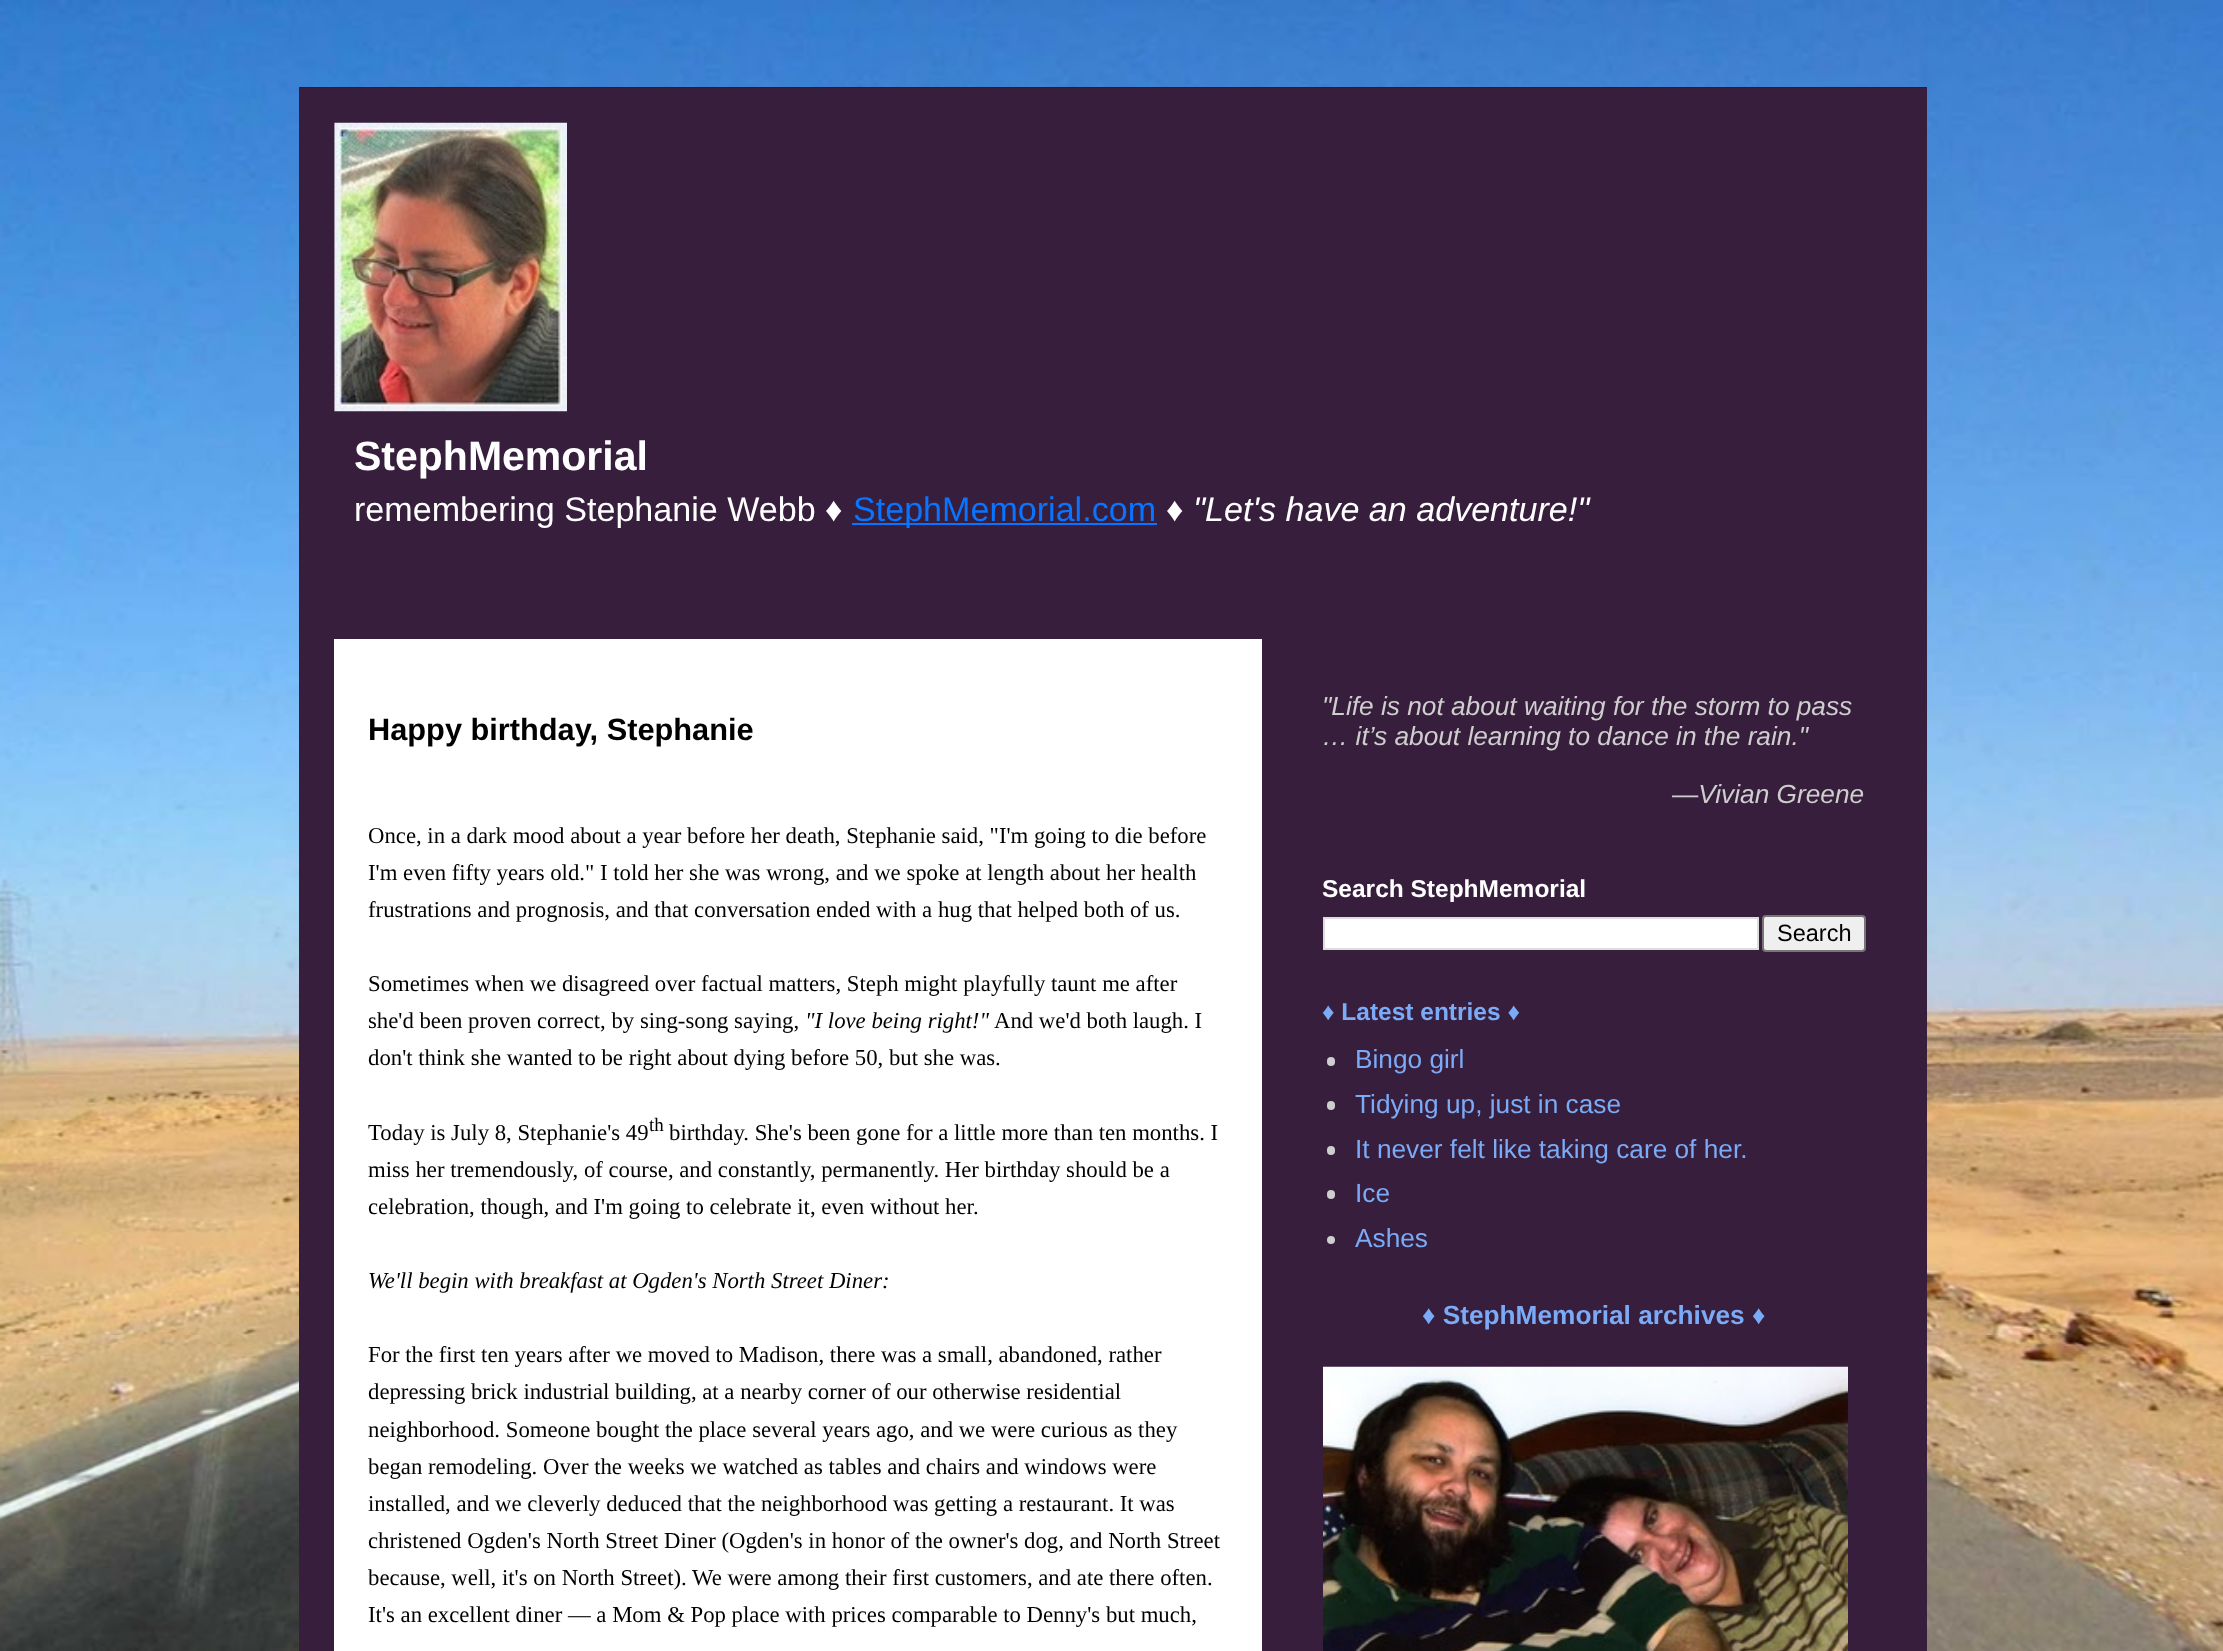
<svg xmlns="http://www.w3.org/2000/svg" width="2223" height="1651">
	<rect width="100%" height="100%" fill="#FFFFFF" />
	<image x="0" y="0" width="2223" height="1651" href="assets/img1.png" />
	<rect x="299" y="88" width="1628" height="1563" fill="#BA67C8" />
	<rect x="299" y="87" width="1628" height="1564" fill="#000000" fill-opacity="0.7" />
	<image x="334" y="122" width="233" height="290" href="assets/img2.png" />
	<text x="354" y="470" font-family="Liberation Sans" font-size="41" font-weight="700" fill="#FFFFFF">StephMemorial</text>
	<text x="354" y="521" font-family="Liberation Sans" font-size="34.1" fill="#FFFFFF">remembering Stephanie Webb ♦</text>
	<rect x="852" y="523" width="305" height="2" fill="#0874FF" />
	<text x="853" y="521" font-family="Liberation Sans" font-size="34.1" fill="#0874FF">StephMemorial.com</text>
	<text x="1166" y="521" font-family="Liberation Sans" font-size="34.1" fill="#FFFFFF">♦</text>
	<text x="1193" y="521" font-family="Liberation Sans" font-size="34.1" font-style="italic" fill="#FFFFFF">"Let's have an adventure!"</text>
	<rect x="334" y="639" width="928" height="1012" fill="#FFFFFF" />
	<text x="368" y="740" font-family="Liberation Sans" font-size="30.75" font-weight="700" fill="#000000">Happy birthday, Stephanie</text>
	<g font-family="Liberation Serif" font-size="22.75" fill="#000000">
		<text x="368" y="843">Once, in a dark mood about a year before her death, Stephanie said, "I'm going to die before</text>
		<text x="368" y="880">I'm even fifty years old." I told her she was wrong, and we spoke at length about her health</text>
		<text x="368" y="917">frustrations and prognosis, and that conversation ended with a hug that helped both of us.</text>
		<text x="368" y="991">Sometimes when we disagreed over factual matters, Steph might playfully taunt me after</text>
		<text x="368" y="1028">she'd been proven correct, by sing-song saying,</text>
	</g>
	<text x="805" y="1028" font-family="Liberation Serif" font-size="22.75" font-style="italic" fill="#000000">"I love being right!"</text>
	<g font-family="Liberation Serif" font-size="22.75" fill="#000000">
		<text x="994" y="1028">And we'd both laugh. I</text>
		<text x="368" y="1065">don't think she wanted to be right about dying before 50, but she was.</text>
		<text x="368" y="1140">Today is July 8, Stephanie's 49</text>
	</g>
	<text x="649" y="1131" font-family="Liberation Serif" font-size="19" fill="#000000">th</text>
	<g font-family="Liberation Serif" font-size="22.75" fill="#000000">
		<text x="669" y="1140">birthday. She's been gone for a little more than ten months. I</text>
		<text x="368" y="1177">miss her tremendously, of course, and constantly, permanently. Her birthday should be a</text>
		<text x="368" y="1214">celebration, though, and I'm going to celebrate it, even without her.</text>
	</g>
	<text x="368" y="1288" font-family="Liberation Serif" font-size="22.75" font-style="italic" fill="#000000">We'll begin with breakfast at Ogden's North Street Diner:</text>
	<g font-family="Liberation Serif" font-size="22.75" fill="#000000">
		<text x="368" y="1362">For the first ten years after we moved to Madison, there was a small, abandoned, rather</text>
		<text x="368" y="1399">depressing brick industrial building, at a nearby corner of our otherwise residential</text>
		<text x="368" y="1437">neighborhood. Someone bought the place several years ago, and we were curious as they</text>
		<text x="368" y="1474">began remodeling. Over the weeks we watched as tables and chairs and windows were</text>
		<text x="368" y="1511">installed, and we cleverly deduced that the neighborhood was getting a restaurant. It was</text>
		<text x="368" y="1548">christened Ogden's North Street Diner (Ogden's in honor of the owner's dog, and North Street</text>
		<text x="368" y="1585">because, well, it's on North Street). We were among their first customers, and ate there often.</text>
		<text x="368" y="1622">It's an excellent diner — a Mom &amp; Pop place with prices comparable to Denny's but much,</text>
	</g>
	<g font-family="Liberation Sans" font-size="26.25" font-style="italic" fill="#CECECE">
		<text x="1322" y="715">"Life is not about waiting for the storm to pass</text>
		<text x="1322" y="745">… it’s about learning to dance in the rain."</text>
		<text x="1672" y="803">—Vivian Greene</text>
	</g>
	<text x="1322" y="897" font-family="Liberation Sans" font-size="24.5" font-weight="700" fill="#FFFFFF">Search StephMemorial</text>
	<rect x="1324" y="918" width="434" height="31" fill="#FFFFFF" stroke="#DDDDDD" stroke-width="2" />
	<rect x="1763" y="916" width="102" height="35" rx="3" fill="#EFEFEF" stroke="#767676" stroke-width="2" />
	<text x="1777" y="941" font-family="Liberation Sans" font-size="23.5" fill="#000000">Search</text>
	<text x="1322" y="1020" font-family="Liberation Sans" font-size="24.5" font-weight="700" fill="#7BAAF7">♦ Latest entries ♦</text>
	<rect x="1327" y="1057" width="8" height="9" rx="4" fill="#CECECE" />
	<text x="1355" y="1068" font-family="Liberation Sans" font-size="26.25" fill="#7BAAF7">Bingo girl</text>
	<rect x="1327" y="1101" width="8" height="9" rx="4" fill="#CECECE" />
	<text x="1355" y="1113" font-family="Liberation Sans" font-size="26.25" fill="#7BAAF7">Tidying up, just in case</text>
	<rect x="1327" y="1146" width="8" height="9" rx="4" fill="#CECECE" />
	<text x="1355" y="1158" font-family="Liberation Sans" font-size="26.25" fill="#7BAAF7">It never felt like taking care of her.</text>
	<rect x="1327" y="1190" width="8" height="9" rx="4" fill="#CECECE" />
	<text x="1355" y="1202" font-family="Liberation Sans" font-size="26.25" fill="#7BAAF7">Ice</text>
	<circle cx="1331" cy="1240" r="4" fill="#CECECE" />
	<text x="1355" y="1247" font-family="Liberation Sans" font-size="26.25" fill="#7BAAF7">Ashes</text>
	<text x="1422" y="1324" font-family="Liberation Sans" font-size="26.25" font-weight="700" fill="#7BAAF7">♦ StephMemorial archives ♦</text>
	<image x="1323" y="1366" width="525" height="285" href="assets/img3.png" />
</svg>
